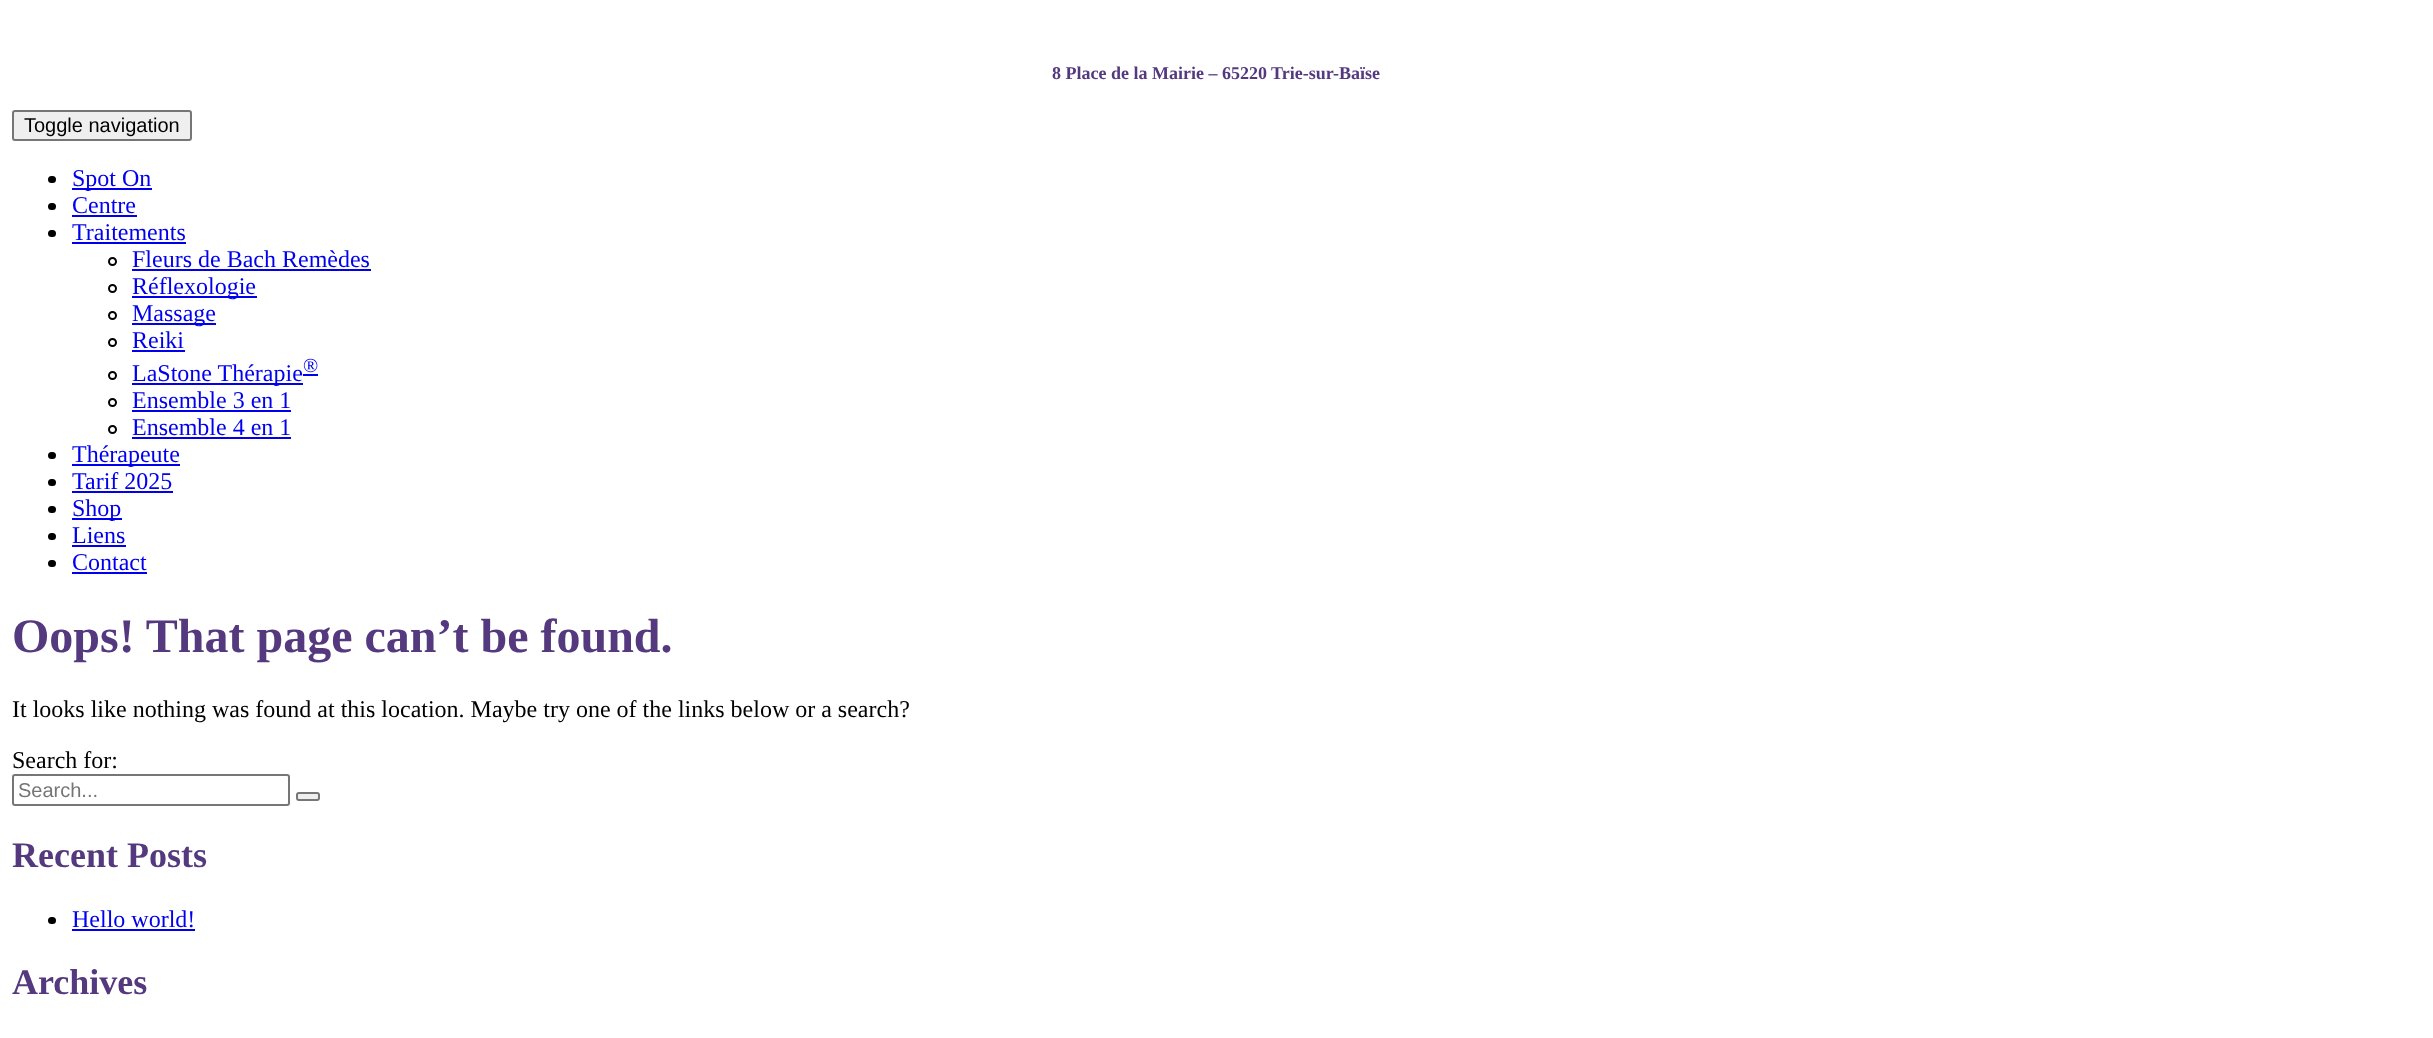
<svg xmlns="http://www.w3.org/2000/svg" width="2433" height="1038">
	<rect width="100%" height="100%" fill="#FFFFFF" />
	<text x="1052" y="79" font-family="Liberation Serif" font-size="18" font-weight="700" fill="#54397E">8 Place de la Mairie – 65220 Trie-sur-Baïse</text>
	<rect x="13" y="111" width="178" height="29" rx="2" fill="#EFEFEF" stroke="#767676" stroke-width="2" />
	<text x="24" y="132" font-family="Liberation Sans" font-size="20" fill="#000000">Toggle navigation</text>
	<rect x="48" y="176" width="8" height="7" rx="3.5" fill="#000000" />
	<rect x="72" y="188" width="80" height="2" fill="#0000EE" />
	<text x="72" y="186" font-family="Liberation Serif" font-size="24" fill="#0000EE">Spot On</text>
	<rect x="48" y="203" width="8" height="7" rx="3.5" fill="#000000" />
	<text x="72" y="213" font-family="Liberation Serif" font-size="24" fill="#0000EE">Centre</text>
	<rect x="72" y="215" width="65" height="2" fill="#0000EE" />
	<rect x="48" y="230" width="8" height="7" rx="3.5" fill="#000000" />
	<text x="72" y="240" font-family="Liberation Serif" font-size="24" fill="#0000EE">Traitements</text>
	<rect x="72" y="242" width="114" height="2" fill="#0000EE" />
	<circle cx="112.5" cy="261.5" r="3.5" fill="none" stroke="#000000" stroke-width="2" />
	<text x="132" y="267" font-family="Liberation Serif" font-size="24" fill="#0000EE">Fleurs de Bach Remèdes</text>
	<rect x="132" y="269" width="239" height="2" fill="#0000EE" />
	<circle cx="112.5" cy="288.5" r="3.5" fill="none" stroke="#000000" stroke-width="2" />
	<rect x="132" y="296" width="125" height="2" fill="#0000EE" />
	<text x="132" y="294" font-family="Liberation Serif" font-size="24" fill="#0000EE">Réflexologie</text>
	<circle cx="112.5" cy="315.5" r="3.5" fill="none" stroke="#000000" stroke-width="2" />
	<rect x="132" y="323" width="84" height="2" fill="#0000EE" />
	<text x="132" y="321" font-family="Liberation Serif" font-size="24" fill="#0000EE">Massage</text>
	<circle cx="112.5" cy="342.5" r="3.5" fill="none" stroke="#000000" stroke-width="2" />
	<text x="132" y="348" font-family="Liberation Serif" font-size="24" fill="#0000EE">Reiki</text>
	<rect x="132" y="350" width="53" height="2" fill="#0000EE" />
	<circle cx="112.5" cy="375.5" r="3.5" fill="none" stroke="#000000" stroke-width="2" />
	<rect x="132" y="383" width="171" height="2" fill="#0000EE" />
	<text x="132" y="381" font-family="Liberation Serif" font-size="24" fill="#0000EE">LaStone Thérapie</text>
	<rect x="303" y="374" width="15" height="2" fill="#0000EE" />
	<text x="303" y="372" font-family="Liberation Serif" font-size="20" fill="#0000EE">®</text>
	<circle cx="112.5" cy="402.5" r="3.5" fill="none" stroke="#000000" stroke-width="2" />
	<text x="132" y="408" font-family="Liberation Serif" font-size="24" fill="#0000EE">Ensemble 3 en 1</text>
	<rect x="132" y="410" width="159" height="2" fill="#0000EE" />
	<circle cx="112.5" cy="429.5" r="3.5" fill="none" stroke="#000000" stroke-width="2" />
	<text x="132" y="435" font-family="Liberation Serif" font-size="24" fill="#0000EE">Ensemble 4 en 1</text>
	<rect x="132" y="437" width="159" height="2" fill="#0000EE" />
	<rect x="48" y="452" width="8" height="7" rx="3.5" fill="#000000" />
	<rect x="72" y="464" width="108" height="2" fill="#0000EE" />
	<text x="72" y="462" font-family="Liberation Serif" font-size="24" fill="#0000EE">Thérapeute</text>
	<rect x="48" y="479" width="8" height="7" rx="3.5" fill="#000000" />
	<text x="72" y="489" font-family="Liberation Serif" font-size="24" fill="#0000EE">Tarif 2025</text>
	<rect x="72" y="491" width="101" height="2" fill="#0000EE" />
	<rect x="48" y="506" width="8" height="7" rx="3.5" fill="#000000" />
	<rect x="72" y="518" width="50" height="2" fill="#0000EE" />
	<text x="72" y="516" font-family="Liberation Serif" font-size="24" fill="#0000EE">Shop</text>
	<rect x="48" y="533" width="8" height="7" rx="3.5" fill="#000000" />
	<text x="72" y="543" font-family="Liberation Serif" font-size="24" fill="#0000EE">Liens</text>
	<rect x="72" y="545" width="54" height="2" fill="#0000EE" />
	<rect x="48" y="560" width="8" height="7" rx="3.5" fill="#000000" />
	<text x="72" y="570" font-family="Liberation Serif" font-size="24" fill="#0000EE">Contact</text>
	<rect x="72" y="572" width="75" height="2" fill="#0000EE" />
	<text x="12" y="652" font-family="Liberation Serif" font-size="48" font-weight="700" fill="#54397E">Oops! That page can’t be found.</text>
	<g font-family="Liberation Serif" font-size="24" fill="#000000">
		<text x="12" y="717">It looks like nothing was found at this location. Maybe try one of the links below or a search?</text>
		<text x="12" y="768">Search for:</text>
	</g>
	<rect x="13" y="775" width="276" height="30" rx="2" fill="none" stroke="#767676" stroke-width="2" />
	<text x="18" y="797" font-family="Liberation Sans" font-size="20" fill="#757575">Search...</text>
	<rect x="297" y="793" width="22" height="7" rx="2" fill="#EFEFEF" stroke="#767676" stroke-width="2" />
	<text x="12" y="867" font-family="Liberation Serif" font-size="36" font-weight="700" fill="#54397E">Recent Posts</text>
	<rect x="48" y="917" width="8" height="7" rx="3.5" fill="#000000" />
	<text x="72" y="927" font-family="Liberation Serif" font-size="24" fill="#0000EE">Hello world!</text>
	<rect x="72" y="929" width="123" height="2" fill="#0000EE" />
	<text x="12" y="994" font-family="Liberation Serif" font-size="36" font-weight="700" fill="#54397E">Archives</text>
</svg>
